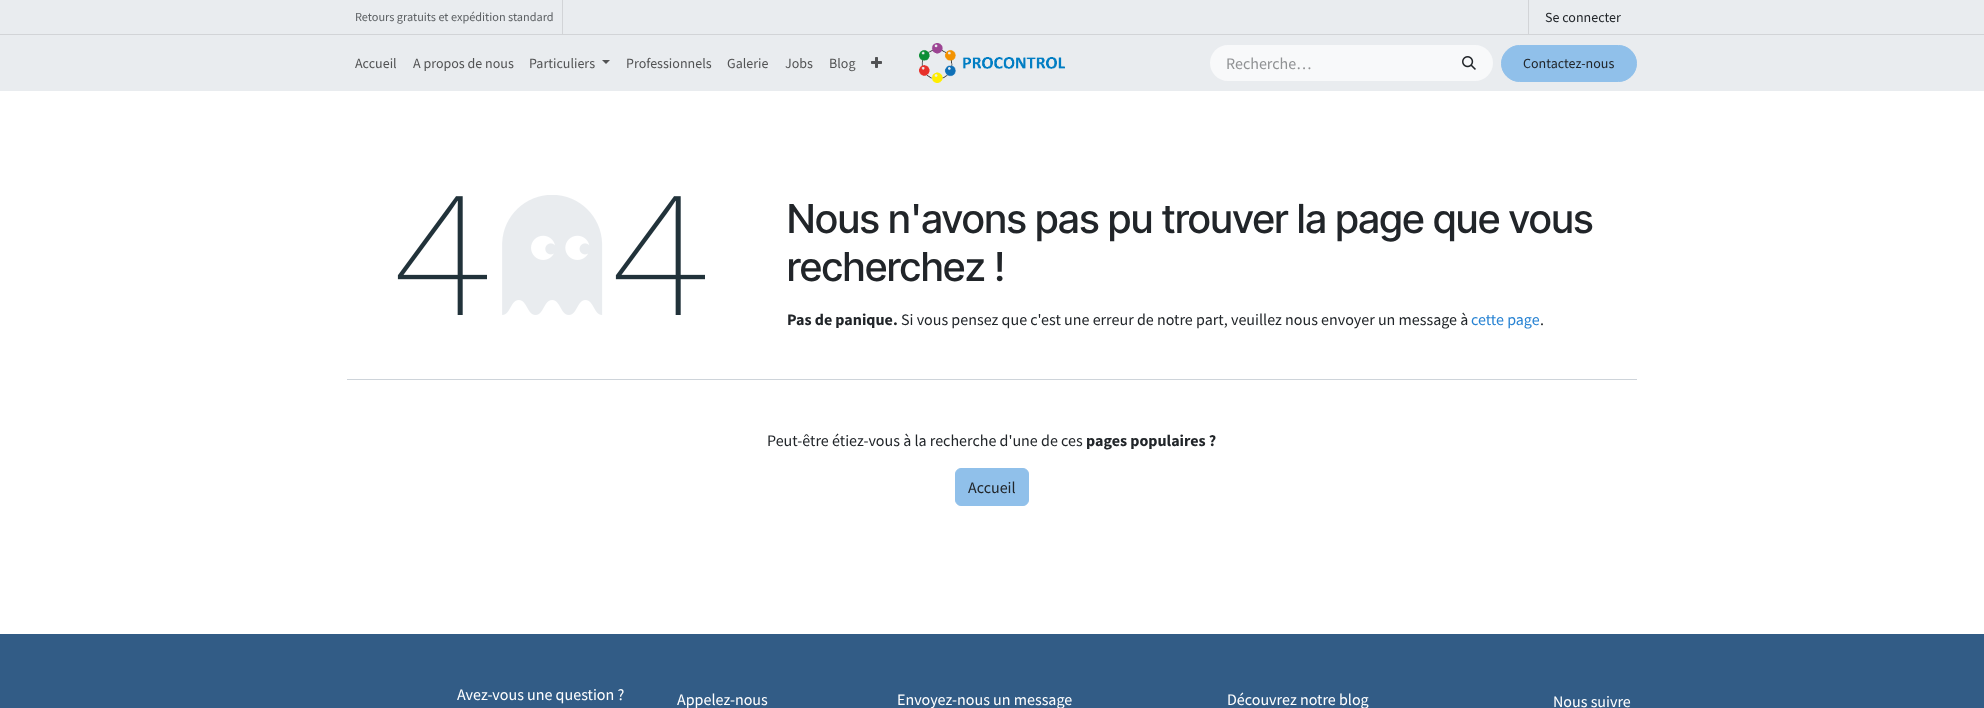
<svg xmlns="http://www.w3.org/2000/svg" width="1984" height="708">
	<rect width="100%" height="100%" fill="#FFFFFF" />
	<rect x="0" y="0" width="1984" height="91" fill="#E9ECEF" />
	<rect x="0" y="34" width="1984" height="1" fill="#D2D4D7" />
	<rect x="562" y="0" width="1" height="34" fill="#D2D4D7" />
	<text x="355" y="21" font-family="Source Sans Pro" font-size="12.25" fill="#5D6164">Retours gratuits et expédition standard</text>
	<rect x="1528" y="0" width="1" height="34" fill="#D2D4D7" />
	<text x="1545" y="22" font-family="Source Sans Pro" font-size="14" fill="#212529">Se connecter</text>
	<g font-family="Source Sans Pro" font-size="14" fill="#525354">
		<text x="355" y="68">Accueil</text>
		<text x="413" y="68">A propos de nous</text>
		<text x="529" y="68">Particuliers</text>
	</g>
	<path d="M602 60H610L606 64Z" fill="#525354" />
	<g font-family="Source Sans Pro" font-size="14" fill="#525354">
		<text x="626" y="68">Professionnels</text>
		<text x="727" y="68">Galerie</text>
		<text x="785" y="68">Jobs</text>
		<text x="829" y="68">Blog</text>
	</g>
	<image x="871" y="57" width="11" height="11" href="assets/img1.png" />
	<image x="919" y="43" width="146" height="40" href="assets/img2.png" />
	<path d="M1228 45H1450V81H1228C1218 81 1210 73 1210 63C1210 53 1218 45 1228 45Z" fill="#F8F9FA" />
	<text x="1226" y="69" font-family="Source Sans Pro" font-size="16" fill="#909294">Recherche…</text>
	<path d="M1449 45H1475C1485 45 1493 53 1493 63C1493 73 1485 81 1475 81H1449Z" fill="#F8F9FA" />
	<image x="1462" y="56" width="14" height="14" href="assets/img3.png" />
	<rect x="1501.5" y="45.5" width="135" height="36" rx="18" fill="#90C0EA" stroke="#90C0EA" />
	<text x="1523" y="68" font-family="Source Sans Pro" font-size="14" fill="#212529">Contactez-nous</text>
	<image x="397" y="195" width="308" height="120" href="assets/img4.png" />
	<g font-family="Inter Tight" font-size="40" font-weight="500" fill="#212529">
		<text x="787" y="233">Nous n'avons pas pu trouver la page que vous</text>
		<text x="787" y="281">recherchez !</text>
	</g>
	<text x="787" y="325" font-family="Source Sans Pro" font-size="16" font-weight="700" fill="#212529">Pas de panique.</text>
	<text x="901" y="325" font-family="Source Sans Pro" font-size="16" fill="#212529">Si vous pensez que c'est une erreur de notre part, veuillez nous envoyer un message à</text>
	<text x="1471" y="325" font-family="Source Sans Pro" font-size="16" fill="#2883D3">cette page</text>
	<text x="1540" y="325" font-family="Source Sans Pro" font-size="16" fill="#212529">.</text>
	<rect x="347" y="379" width="1290" height="1" fill="#CED4DA" />
	<text x="767" y="446" font-family="Source Sans Pro" font-size="16" fill="#212529">Peut-être étiez-vous à la recherche d'une de ces</text>
	<text x="1086" y="446" font-family="Source Sans Pro" font-size="16" font-weight="700" fill="#212529">pages populaires ?</text>
	<rect x="955.5" y="468.5" width="73" height="37" rx="5.5" fill="#90C0EA" stroke="#90C0EA" />
	<text x="968" y="493" font-family="Source Sans Pro" font-size="16" fill="#212529">Accueil</text>
	<rect x="0" y="634" width="1984" height="74" fill="#325C86" />
	<g font-family="Source Sans Pro" font-size="16" fill="#FFFFFF">
		<text x="457" y="700">Avez-vous une question ?</text>
		<text x="677" y="705">Appelez-nous</text>
		<text x="897" y="705">Envoyez-nous un message</text>
		<text x="1227" y="705">Découvrez notre blog</text>
		<text x="1553" y="707">Nous suivre</text>
	</g>
</svg>
